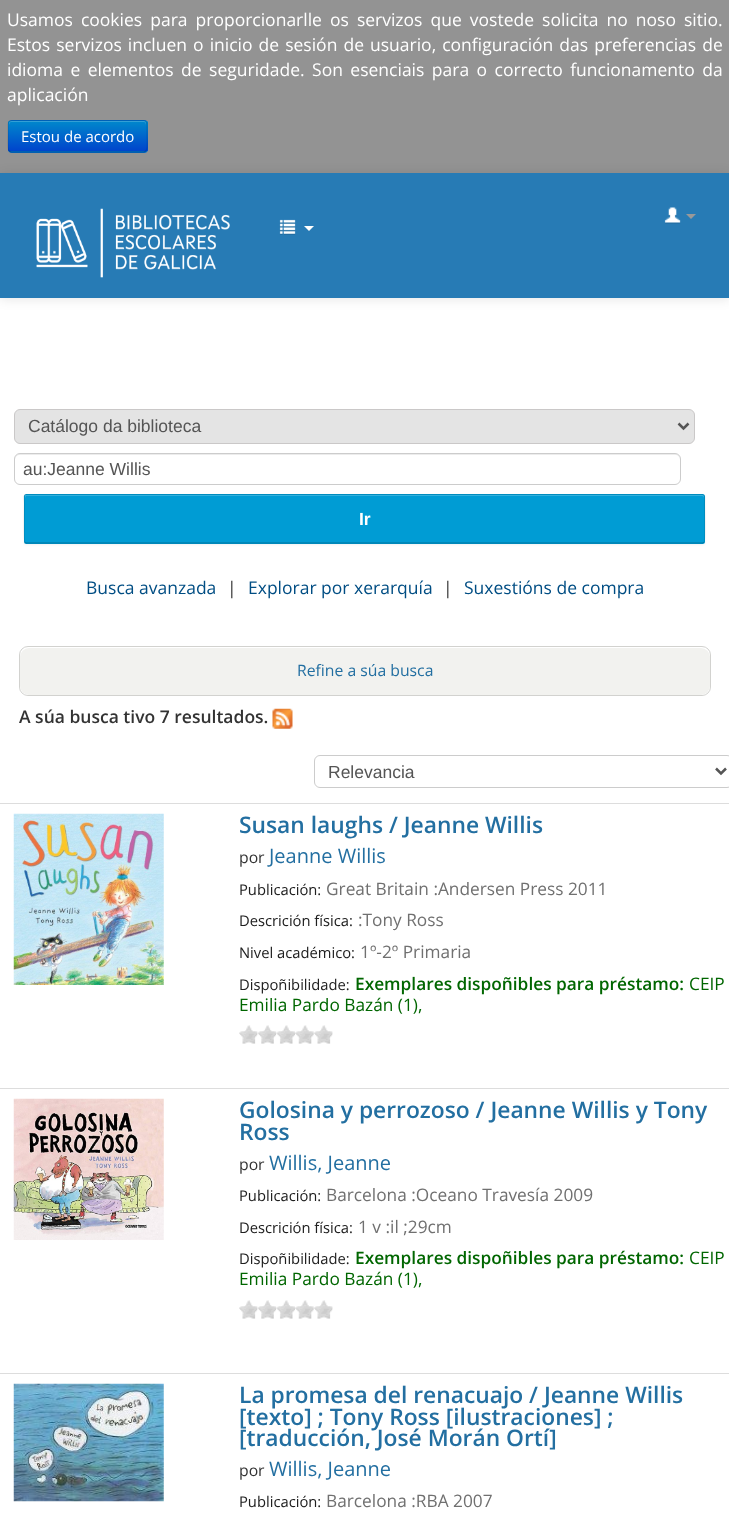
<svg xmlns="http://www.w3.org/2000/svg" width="729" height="1533">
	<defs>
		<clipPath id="clip1"><rect x="8" y="120" width="140" height="33" rx="4" /></clipPath>
		<linearGradient id="g1" gradientUnits="userSpaceOnUse" x1="78" y1="121" x2="78" y2="151"><stop offset="0" stop-color="#0088CC" /><stop offset="1" stop-color="#0044CC" /></linearGradient>
	</defs>
	<rect width="100%" height="100%" fill="#FFFFFF" />
	<rect x="0" y="0" width="729" height="173" fill="#939393" />
	<g font-family="Open Sans" font-size="17.5" fill="#FFFFFF">
		<text x="7" y="26" word-spacing="3.5">Usamos cookies para proporcionarlle os servizos que vostede solicita no noso sitio.</text>
		<text x="7" y="51" word-spacing="1.5">Estos servizos incluen o inicio de sesión de usuario, configuración das preferencias de</text>
		<text x="7" y="76" word-spacing="2.9">idioma e elementos de seguridade. Son esenciais para o correcto funcionamento da</text>
		<text x="7" y="101">aplicación</text>
	</g>
	<rect x="8" y="120" width="140" height="33" rx="4" fill="#006DCC" />
	<g clip-path="url(#clip1)">
		<rect x="8" y="121" width="140" height="30" fill="url(#g1)" />
	</g>
	<path d="M11 122H144C145 122 146 124 146 125V124C146 122 145 121 144 121H12C10 121 9 122 9 124V125C9 124 10 122 11 122Z" fill="#339FD6" />
	<path d="M146 151L144 152H11L9 151" fill="none" stroke="#000000" stroke-opacity="0.25" stroke-width="1.2" />
	<path d="M9 151C7 149 8 139 8 136V128C8 125.5 7.5 120.5 11 120.5H144C147.5 120.5 147 125.5 147 128V136C147 139 148 149 146 151" fill="none" stroke="#000000" stroke-opacity="0.1" stroke-width="1.2" />
	<text x="21" y="142" font-family="Open Sans" font-size="15" fill="#FFFFFF">Estou de acordo</text>
	<rect x="0" y="174" width="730" height="125" fill="#000000" fill-opacity="0.1" filter="blur(6px)" />
	<rect x="0" y="173" width="729" height="125" fill="#277BB5" />
	<image x="36" y="208" width="194" height="70" href="assets/img1.png" />
	<image x="279" y="219" width="17" height="16" href="assets/img2.png" />
	<path d="M304 226H314L309 231Z" fill="#FFFFFF" />
	<image x="664" y="207" width="17" height="17" href="assets/img3.png" />
	<path d="M686 214H696L691 219Z" fill="#999999" />
	<rect x="14.5" y="409.5" width="680" height="34" rx="5.5" fill="#E4E4E4" stroke="#CAC8C8" />
	<path d="M678.5 423.5L683.5 428.5L688.5 423.5" fill="none" stroke="#555555" stroke-width="2.5" />
	<text x="28" y="432" font-family="Liberation Sans" font-size="17.5" fill="#555555">Catálogo da biblioteca</text>
	<path d="M20 455H675C678 455 680 457 680 460V459C680 456 678 454 675 454H20C17 454 15 456 15 459V460C15 457 17 455 20 455Z" fill="#ECECEC" />
	<rect x="14.5" y="453.5" width="666" height="31" rx="5.5" fill="none" stroke="#CCCCCC" />
	<text x="23" y="475" font-family="Liberation Sans" font-size="17.5" fill="#555555">au:Jeanne Willis</text>
	<rect x="24" y="495" width="681" height="50" rx="2.5" fill="#000000" fill-opacity="0.05" filter="blur(1px)" />
	<rect x="24" y="494" width="681" height="50" rx="2.5" fill="#009CD4" />
	<path d="M26 496H702C703 496 704 497 704 498C704 497 704 495 703 495H26H25V498Z" fill="#33B0DD" />
	<path d="M704 542.5L702.5 543H26L25 542.5" fill="none" stroke="#000000" stroke-opacity="0.25" stroke-width="1.2" />
	<path d="M25 542.5C23.5 541 24.5 508.5 24.5 504C24.5 500 23 494.5 26 494.5H702.5C705.5 494.5 704.5 500 704.5 504C704.5 508.5 705.5 541 704 542.5" fill="none" stroke="#000000" stroke-opacity="0.1" stroke-width="1.2" />
	<text x="359" y="525" font-family="Liberation Sans" font-size="17.5" font-weight="700" fill="#FFFFFF">Ir</text>
	<text x="86" y="594" font-family="Open Sans" font-size="17.5" fill="#004D83">Busca avanzada</text>
	<text x="227" y="594" font-family="Open Sans" font-size="17.5" fill="#333333">|</text>
	<text x="248" y="594" font-family="Open Sans" font-size="17.5" fill="#004D83">Explorar por xerarquía</text>
	<text x="443" y="594" font-family="Open Sans" font-size="17.5" fill="#333333">|</text>
	<text x="464" y="594" font-family="Open Sans" font-size="17.5" fill="#004D83">Suxestións de compra</text>
	<rect x="19.5" y="646.5" width="691" height="49" rx="8.5" fill="none" stroke="#D2D2CF" />
	<rect x="20" y="648" width="690" height="47" rx="9" fill="#F2F2EF" />
	<text x="297" y="676" font-family="Open Sans" font-size="15.75" fill="#236FA1">Refine a súa busca</text>
	<text x="19" y="723" font-family="Open Sans" font-size="17.5" font-weight="600" fill="#333333">A súa busca tivo 7 resultados.</text>
	<image x="272" y="708" width="21" height="21" href="assets/img4.png" />
	<rect x="314.5" y="755.5" width="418" height="32" rx="5.5" fill="none" stroke="#CCCCCC" />
	<path d="M716 768.5L721 773.5L726 768.5" fill="none" stroke="#555555" stroke-width="2.5" />
	<text x="328" y="778" font-family="Liberation Sans" font-size="17.5" fill="#555555">Relevancia</text>
	<rect x="0" y="803" width="729" height="1" fill="#DDDDDD" />
	<image x="13" y="813" width="151" height="172" href="assets/img5.png" />
	<text x="239" y="833" font-family="Open Sans" font-size="22.8" font-weight="600" fill="#236FA1">Susan laughs / Jeanne Willis</text>
	<text x="239" y="863" font-family="Open Sans" font-size="15.75" fill="#333333">por</text>
	<text x="269" y="863" font-family="Open Sans" font-size="20" fill="#236FA1">Jeanne Willis</text>
	<text x="239" y="895" font-family="Open Sans" font-size="14.75" fill="#202020">Publicación:</text>
	<text x="326" y="895" font-family="Open Sans" font-size="17.3" fill="#707070">Great Britain :Andersen Press 2011</text>
	<text x="239" y="926" font-family="Open Sans" font-size="14.75" fill="#202020">Descrición física:</text>
	<text x="358" y="926" font-family="Open Sans" font-size="17.3" fill="#707070">:Tony Ross</text>
	<text x="239" y="958" font-family="Open Sans" font-size="14.75" fill="#202020">Nivel académico:</text>
	<text x="360" y="958" font-family="Open Sans" font-size="17.3" fill="#707070">1º-2º Primaria</text>
	<text x="239" y="990" font-family="Open Sans" font-size="14.75" fill="#202020">Dispoñibilidade:</text>
	<text x="355" y="990" font-family="Open Sans" font-size="17.3" font-weight="600" fill="#006600">Exemplares dispoñibles para préstamo:</text>
	<g font-family="Open Sans" font-size="17.3" fill="#006600">
		<text x="689" y="990">CEIP</text>
		<text x="239" y="1011">Emilia Pardo Bazán (1),</text>
	</g>
	<image x="239" y="1025" width="19" height="19" href="assets/img6.png" />
	<image x="258" y="1025" width="19" height="19" href="assets/img7.png" />
	<image x="276" y="1025" width="19" height="19" href="assets/img8.png" />
	<image x="295" y="1025" width="19" height="19" href="assets/img9.png" />
	<image x="314" y="1025" width="19" height="19" href="assets/img6.png" />
	<rect x="0" y="1088" width="729" height="1" fill="#DDDDDD" />
	<image x="13" y="1098" width="151" height="142" href="assets/img10.png" />
	<g font-family="Open Sans" font-size="22.8" font-weight="600" fill="#236FA1">
		<text x="239" y="1118">Golosina y perrozoso / Jeanne Willis y Tony</text>
		<text x="239" y="1140">Ross</text>
	</g>
	<text x="239" y="1170" font-family="Open Sans" font-size="15.75" fill="#333333">por</text>
	<text x="269" y="1170" font-family="Open Sans" font-size="20" fill="#236FA1">Willis, Jeanne</text>
	<text x="239" y="1201" font-family="Open Sans" font-size="14.75" fill="#202020">Publicación:</text>
	<text x="326" y="1201" font-family="Open Sans" font-size="17.3" fill="#707070">Barcelona :Oceano Travesía 2009</text>
	<text x="239" y="1233" font-family="Open Sans" font-size="14.75" fill="#202020">Descrición física:</text>
	<text x="358" y="1233" font-family="Open Sans" font-size="17.3" fill="#707070">1 v :il ;29cm</text>
	<text x="239" y="1264" font-family="Open Sans" font-size="14.75" fill="#202020">Dispoñibilidade:</text>
	<text x="355" y="1264" font-family="Open Sans" font-size="17.3" font-weight="600" fill="#006600">Exemplares dispoñibles para préstamo:</text>
	<g font-family="Open Sans" font-size="17.3" fill="#006600">
		<text x="689" y="1264">CEIP</text>
		<text x="239" y="1285">Emilia Pardo Bazán (1),</text>
	</g>
	<image x="239" y="1300" width="19" height="19" href="assets/img11.png" />
	<image x="258" y="1300" width="19" height="19" href="assets/img12.png" />
	<image x="276" y="1300" width="19" height="19" href="assets/img13.png" />
	<image x="295" y="1300" width="19" height="19" href="assets/img14.png" />
	<image x="314" y="1300" width="19" height="19" href="assets/img11.png" />
	<rect x="0" y="1373" width="729" height="1" fill="#DDDDDD" />
	<image x="13" y="1383" width="151" height="119" href="assets/img15.png" />
	<g font-family="Open Sans" font-size="22.8" font-weight="600" fill="#236FA1">
		<text x="239" y="1403">La promesa del renacuajo / Jeanne Willis</text>
		<text x="239" y="1425">[texto] ; Tony Ross [ilustraciones] ;</text>
		<text x="239" y="1446">[traducción, José Morán Ortí]</text>
	</g>
	<text x="239" y="1476" font-family="Open Sans" font-size="15.75" fill="#333333">por</text>
	<text x="269" y="1476" font-family="Open Sans" font-size="20" fill="#236FA1">Willis, Jeanne</text>
	<text x="239" y="1507" font-family="Open Sans" font-size="14.75" fill="#202020">Publicación:</text>
	<text x="326" y="1507" font-family="Open Sans" font-size="17.3" fill="#707070">Barcelona :RBA 2007</text>
</svg>
